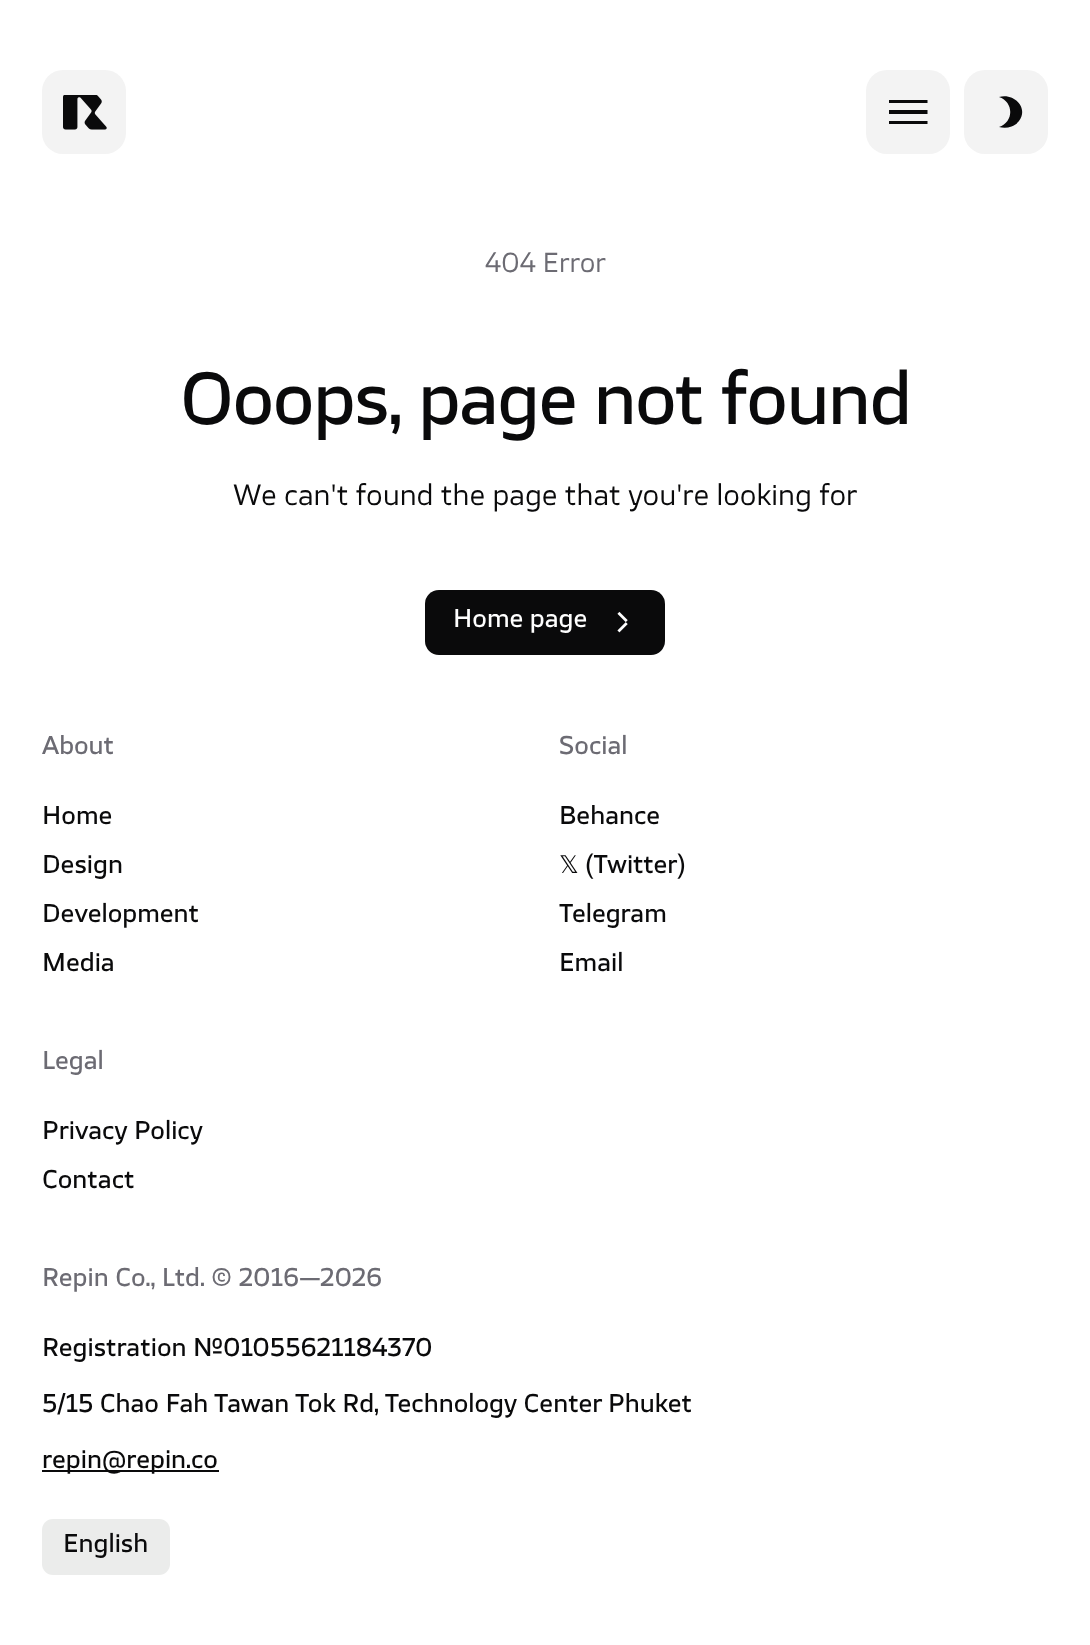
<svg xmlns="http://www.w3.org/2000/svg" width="1090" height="1645">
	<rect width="100%" height="100%" fill="#FFFFFF" />
	<rect x="42" y="70" width="84" height="84" rx="21" fill="#F3F3F3" />
	<image x="63" y="95" width="44" height="35" href="assets/img1.png" />
	<rect x="866" y="70" width="84" height="84" rx="21" fill="#F3F3F3" />
	<path d="M889 110H927.5V114H889ZM889 100H927.5V103H889ZM889 121H927.5V124H889Z" fill="#0A0A0B" />
	<rect x="964" y="70" width="84" height="84" rx="21" fill="#F3F3F3" />
	<path d="M999 127C1014 122 1014 102 999 97C1013.5 92.5 1029 107.5 1019 121C1017 123.5 1014.5 125.5 1011.5 126.5C1007.5 128 1003 128 999 127Z" fill="#0A0A0B" fill-rule="evenodd" />
	<text x="485" y="272" font-family="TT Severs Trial" font-size="26.25" fill="#6C6B73">404 Error</text>
	<text x="180" y="424" font-family="TT Severs Trial" font-size="70" font-weight="500" letter-spacing="-1.4" fill="#0A0A0B">Ooops, page not found</text>
	<text x="233" y="505" font-family="TT Severs Trial" font-size="28" fill="#0A0A0B">We can't found the page that you're looking for</text>
	<rect x="425" y="590" width="240" height="65" rx="14" fill="#0A0A0B" />
	<text x="453" y="627" font-family="TT Severs Trial" font-size="24.5" font-weight="500" fill="#FFFFFF">Home page</text>
	<image x="617" y="611" width="11" height="22" href="assets/img2.png" />
	<text x="42" y="754" font-family="TT Severs Trial" font-size="24.5" font-weight="500" fill="#6C6B73">About</text>
	<g font-family="TT Severs Trial" font-size="24.5" font-weight="500" fill="#0A0A0B">
		<text x="42" y="824">Home</text>
		<text x="42" y="873">Design</text>
		<text x="42" y="922">Development</text>
		<text x="42" y="971">Media</text>
	</g>
	<text x="559" y="754" font-family="TT Severs Trial" font-size="24.5" font-weight="500" fill="#6C6B73">Social</text>
	<text x="559" y="824" font-family="TT Severs Trial" font-size="24.5" font-weight="500" fill="#0A0A0B">Behance</text>
	<text x="559" y="873" font-family="DejaVu Sans" font-size="24.5" fill="#0A0A0B">𝕏</text>
	<g font-family="TT Severs Trial" font-size="24.5" font-weight="500" fill="#0A0A0B">
		<text x="585" y="873">(Twitter)</text>
		<text x="559" y="922">Telegram</text>
		<text x="559" y="971">Email</text>
	</g>
	<text x="42" y="1069" font-family="TT Severs Trial" font-size="24.5" font-weight="500" fill="#6C6B73">Legal</text>
	<g font-family="TT Severs Trial" font-size="24.5" font-weight="500" fill="#0A0A0B">
		<text x="42" y="1139">Privacy Policy</text>
		<text x="42" y="1188">Contact</text>
	</g>
	<text x="42" y="1286" font-family="TT Severs Trial" font-size="24.5" font-weight="500" fill="#6C6B73">Repin Co., Ltd. © 2016—2026</text>
	<g font-family="TT Severs Trial" font-size="24.5" font-weight="500" fill="#0A0A0B">
		<text x="42" y="1356">Registration №01055621184370</text>
		<text x="42" y="1412">5/15 Chao Fah Tawan Tok Rd, Technology Center Phuket</text>
	</g>
	<rect x="42" y="1470" width="177" height="2" fill="#0A0A0B" />
	<text x="42" y="1468" font-family="TT Severs Trial" font-size="24.5" font-weight="500" fill="#0A0A0B">repin@repin.co</text>
	<rect x="42" y="1519" width="128" height="56" rx="11" fill="#EBECEB" />
	<text x="63" y="1552" font-family="TT Severs Trial" font-size="24.5" font-weight="500" fill="#0A0A0B">English</text>
</svg>
